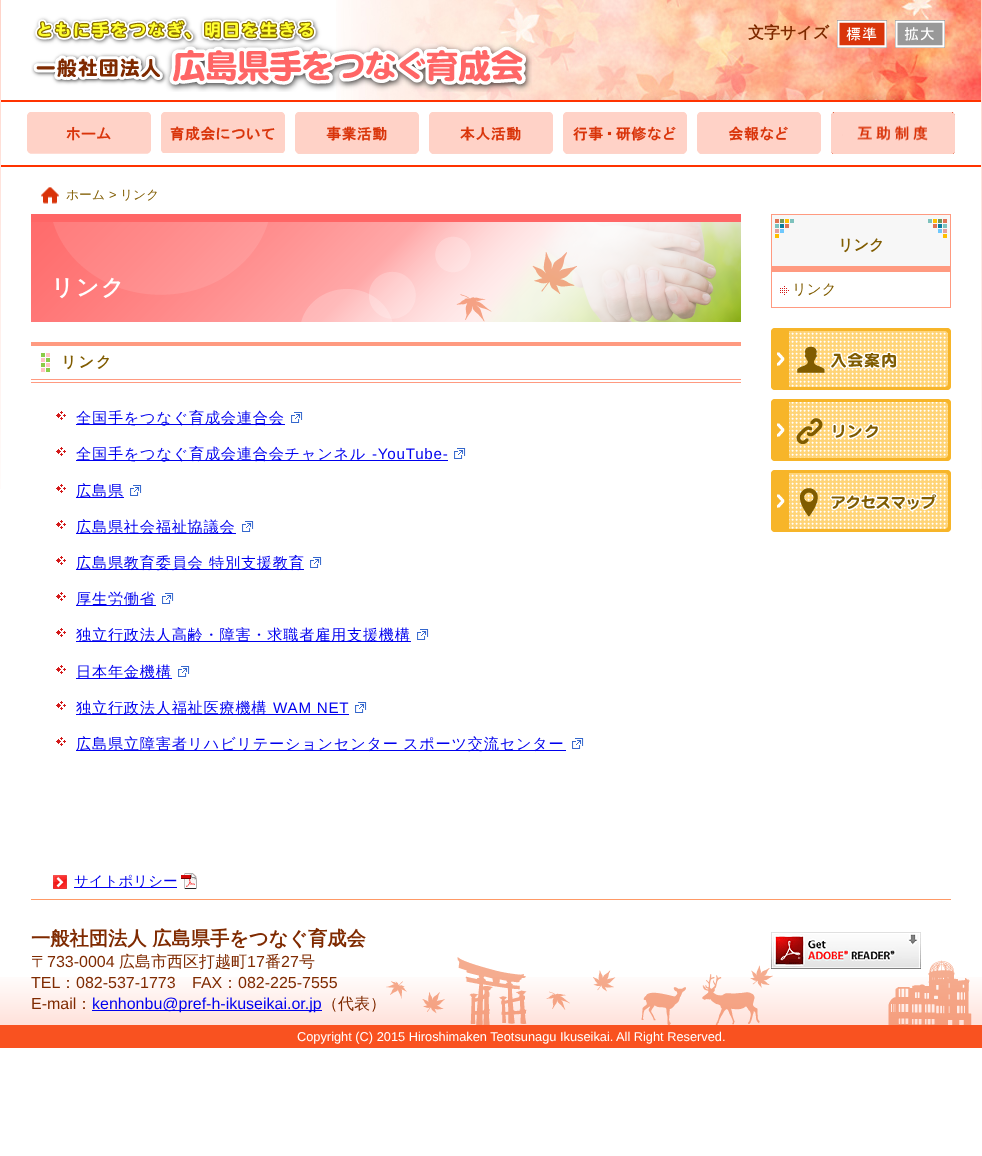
<svg xmlns="http://www.w3.org/2000/svg" width="982" height="1156">
	<rect width="100%" height="100%" fill="#FFFFFF" />
	<image x="0" y="0" width="982" height="489" href="assets/img1.png" />
	<rect x="1" y="0" width="980" height="489" fill="#FFFFFF" />
	<image x="336" y="0" width="645" height="100" href="assets/img2.png" />
	<image x="31" y="16" width="501" height="76" href="assets/img3.png" />
	<text x="748" y="38" font-family="WenQuanYi Zen Hei" font-size="16" font-weight="700" fill="#7F2A00">文字サイズ</text>
	<image x="837" y="20" width="50" height="28" href="assets/img4.png" />
	<image x="895" y="20" width="50" height="28" href="assets/img5.png" />
	<rect x="1" y="100" width="980" height="2" fill="#FF3300" />
	<rect x="1" y="165" width="980" height="2" fill="#FF3300" />
	<image x="27" y="112" width="124" height="42" href="assets/img6.png" />
	<image x="161" y="112" width="124" height="41" href="assets/img7.png" />
	<image x="295" y="112" width="124" height="42" href="assets/img8.png" />
	<image x="429" y="112" width="124" height="42" href="assets/img9.png" />
	<image x="563" y="112" width="124" height="42" href="assets/img10.png" />
	<image x="697" y="112" width="124" height="42" href="assets/img11.png" />
	<image x="831" y="112" width="124" height="42" href="assets/img12.png" />
	<image x="41" y="187" width="18" height="17" href="assets/img13.png" />
	<text x="66" y="199" font-family="WenQuanYi Zen Hei" font-size="12.8" font-weight="500" fill="#805C00">ホーム</text>
	<text x="109" y="199" font-family="Liberation Sans" font-size="12.8" fill="#805C00">&gt;</text>
	<text x="120" y="199" font-family="WenQuanYi Zen Hei" font-size="12.8" font-weight="500" fill="#805C00">リンク</text>
	<rect x="772" y="215" width="178" height="51" fill="#F7F7F7" />
	<image x="775" y="219" width="172" height="19" href="assets/img14.png" />
	<rect x="771" y="214" width="180" height="1" fill="#FF9A80" />
	<rect x="950" y="214" width="1" height="94" fill="#FF9A80" />
	<rect x="771" y="266" width="180" height="6" fill="#FF9A80" />
	<rect x="771" y="214" width="1" height="94" fill="#FF9A80" />
	<text x="838" y="250" font-family="WenQuanYi Zen Hei" font-size="15.2" font-weight="700" fill="#805C00">リンク</text>
	<image x="780" y="286" width="9" height="9" href="assets/img15.png" />
	<rect x="772" y="307" width="178" height="1" fill="#FF9A80" />
	<text x="792" y="294" font-family="WenQuanYi Zen Hei" font-size="14.5" font-weight="500" fill="#805C00">リンク</text>
	<image x="771" y="328" width="180" height="62" href="assets/img16.png" />
	<image x="771" y="399" width="180" height="62" href="assets/img17.png" />
	<image x="771" y="470" width="180" height="62" href="assets/img18.png" />
	<rect x="31" y="214" width="710" height="8" fill="#FF6666" />
	<image x="31" y="222" width="710" height="100" href="assets/img19.png" />
	<text x="51" y="295" font-family="WenQuanYi Zen Hei" font-size="22.5" font-weight="700" letter-spacing="2" fill="#FFFFFF">リンク</text>
	<image x="41" y="353" width="9" height="19" href="assets/img20.png" />
	<rect x="31" y="342" width="710" height="4" fill="#FF9A80" />
	<rect x="31" y="379" width="710" height="1" fill="#FF9A80" />
	<rect x="31" y="382" width="710" height="1" fill="#FF9A80" />
	<text x="61" y="367" font-family="WenQuanYi Zen Hei" font-size="15.2" font-weight="700" letter-spacing="2" fill="#805C00">リンク</text>
	<image x="56" y="411" width="10" height="9" href="assets/img21.png" />
	<rect x="76" y="424" width="209" height="1" fill="#0000EE" />
	<text x="76" y="423" font-family="WenQuanYi Zen Hei" font-size="15.2" font-weight="500" letter-spacing="0.75" fill="#0000EE">全国手をつなぐ育成会連合会</text>
	<image x="291" y="412" width="12" height="11" href="assets/img22.png" />
	<image x="56" y="447" width="10" height="9" href="assets/img21.png" />
	<rect x="76" y="460" width="372" height="1" fill="#0000EE" />
	<text x="76" y="459" font-family="WenQuanYi Zen Hei" font-size="15.2" font-weight="500" letter-spacing="0.75" fill="#0000EE">全国手をつなぐ育成会連合会チャンネル</text>
	<text x="372" y="459" font-family="Liberation Sans" font-size="15.2" letter-spacing="0.75" fill="#0000EE">-YouTube-</text>
	<image x="454" y="448" width="12" height="11" href="assets/img22.png" />
	<image x="56" y="484" width="10" height="9" href="assets/img21.png" />
	<rect x="76" y="497" width="48" height="1" fill="#0000EE" />
	<text x="76" y="496" font-family="WenQuanYi Zen Hei" font-size="15.2" font-weight="500" letter-spacing="0.75" fill="#0000EE">広島県</text>
	<image x="130" y="485" width="12" height="11" href="assets/img22.png" />
	<image x="56" y="520" width="10" height="9" href="assets/img21.png" />
	<rect x="76" y="533" width="160" height="1" fill="#0000EE" />
	<text x="76" y="532" font-family="WenQuanYi Zen Hei" font-size="15.2" font-weight="500" letter-spacing="0.75" fill="#0000EE">広島県社会福祉協議会</text>
	<image x="242" y="521" width="12" height="11" href="assets/img22.png" />
	<image x="56" y="556" width="10" height="9" href="assets/img21.png" />
	<rect x="76" y="569" width="228" height="1" fill="#0000EE" />
	<g font-family="WenQuanYi Zen Hei" font-size="15.2" font-weight="500" letter-spacing="0.75" fill="#0000EE">
		<text x="76" y="568">広島県教育委員会</text>
		<text x="209" y="568">特別支援教育</text>
	</g>
	<image x="310" y="557" width="12" height="11" href="assets/img22.png" />
	<image x="56" y="592" width="10" height="9" href="assets/img21.png" />
	<rect x="76" y="605" width="80" height="1" fill="#0000EE" />
	<text x="76" y="604" font-family="WenQuanYi Zen Hei" font-size="15.2" font-weight="500" letter-spacing="0.75" fill="#0000EE">厚生労働省</text>
	<image x="162" y="593" width="12" height="11" href="assets/img22.png" />
	<image x="56" y="628" width="10" height="9" href="assets/img21.png" />
	<rect x="76" y="641" width="335" height="1" fill="#0000EE" />
	<text x="76" y="640" font-family="WenQuanYi Zen Hei" font-size="15.2" font-weight="500" letter-spacing="0.75" fill="#0000EE">独立行政法人高齢・障害・求職者雇用支援機構</text>
	<image x="417" y="629" width="12" height="11" href="assets/img22.png" />
	<image x="56" y="665" width="10" height="9" href="assets/img21.png" />
	<rect x="76" y="678" width="96" height="1" fill="#0000EE" />
	<text x="76" y="677" font-family="WenQuanYi Zen Hei" font-size="15.2" font-weight="500" letter-spacing="0.75" fill="#0000EE">日本年金機構</text>
	<image x="178" y="666" width="12" height="11" href="assets/img22.png" />
	<image x="56" y="701" width="10" height="9" href="assets/img21.png" />
	<rect x="76" y="714" width="273" height="1" fill="#0000EE" />
	<text x="76" y="713" font-family="WenQuanYi Zen Hei" font-size="15.2" font-weight="500" letter-spacing="0.75" fill="#0000EE">独立行政法人福祉医療機構</text>
	<text x="273" y="713" font-family="Liberation Sans" font-size="15.2" letter-spacing="0.75" fill="#0000EE">WAM NET</text>
	<image x="355" y="702" width="12" height="11" href="assets/img22.png" />
	<image x="56" y="737" width="10" height="9" href="assets/img21.png" />
	<rect x="76" y="750" width="490" height="1" fill="#0000EE" />
	<text x="76" y="749" word-spacing="-1" font-family="WenQuanYi Zen Hei" font-size="15.2" font-weight="500" letter-spacing="0.75" fill="#0000EE">広島県立障害者リハビリテーションセンター スポーツ交流センター</text>
	<image x="572" y="738" width="12" height="11" href="assets/img22.png" />
	<rect x="31" y="899" width="920" height="1" fill="#FF9966" />
	<image x="53" y="875" width="14" height="14" href="assets/img23.png" />
	<rect x="74" y="887" width="103" height="1" fill="#0000EE" />
	<text x="74" y="886" font-family="WenQuanYi Zen Hei" font-size="14.5" font-weight="500" fill="#0000EE">サイトポリシー</text>
	<image x="181" y="873" width="16" height="16" href="assets/img24.png" />
	<image x="0" y="977" width="982" height="48" href="assets/img25.png" />
	<image x="386" y="957" width="586" height="68" href="assets/img26.png" />
	<text x="31" y="945" font-family="WenQuanYi Zen Hei" font-size="19.25" font-weight="700" fill="#7F2A00">一般社団法人 広島県手をつなぐ育成会</text>
	<text x="31" y="967" font-family="WenQuanYi Zen Hei" font-size="16" font-weight="500" fill="#7F2A00">〒</text>
	<text x="47" y="967" font-family="Liberation Sans" font-size="16" fill="#7F2A00">733-0004</text>
	<text x="119" y="967" font-family="WenQuanYi Zen Hei" font-size="16" font-weight="500" fill="#7F2A00">広島市西区打越町</text>
	<text x="247" y="967" font-family="Liberation Sans" font-size="16" fill="#7F2A00">17</text>
	<text x="265" y="967" font-family="WenQuanYi Zen Hei" font-size="16" font-weight="500" fill="#7F2A00">番</text>
	<text x="281" y="967" font-family="Liberation Sans" font-size="16" fill="#7F2A00">27</text>
	<text x="299" y="967" font-family="WenQuanYi Zen Hei" font-size="16" font-weight="500" fill="#7F2A00">号</text>
	<text x="31" y="988" font-family="Liberation Sans" font-size="16" fill="#7F2A00">TEL</text>
	<text x="60" y="988" font-family="WenQuanYi Zen Hei" font-size="16" font-weight="500" fill="#7F2A00">：</text>
	<g font-family="Liberation Sans" font-size="16" fill="#7F2A00">
		<text x="76" y="988">082-537-1773</text>
		<text x="192" y="988">FAX</text>
	</g>
	<text x="222" y="988" font-family="WenQuanYi Zen Hei" font-size="16" font-weight="500" fill="#7F2A00">：</text>
	<g font-family="Liberation Sans" font-size="16" fill="#7F2A00">
		<text x="238" y="988">082-225-7555</text>
		<text x="31" y="1009">E-mail</text>
	</g>
	<text x="76" y="1009" font-family="WenQuanYi Zen Hei" font-size="16" font-weight="500" fill="#7F2A00">：</text>
	<rect x="92" y="1010" width="230" height="1" fill="#0000EE" />
	<text x="92" y="1009" font-family="Liberation Sans" font-size="16" fill="#0000EE">kenhonbu@pref-h-ikuseikai.or.jp</text>
	<text x="322" y="1009" font-family="WenQuanYi Zen Hei" font-size="16" font-weight="500" fill="#7F2A00">（代表）</text>
	<image x="771" y="932" width="150" height="37" href="assets/img27.png" />
	<rect x="0" y="1025" width="982" height="23" fill="#F95220" />
	<g font-family="Liberation Sans" font-size="12.8" fill="#FFFFFF">
		<text x="297" y="1041">Copyright (C) 2015 Hiroshimaken Teotsunagu Ikuseikai.</text>
		<text x="616" y="1041">All Right Reserved.</text>
	</g>
</svg>
